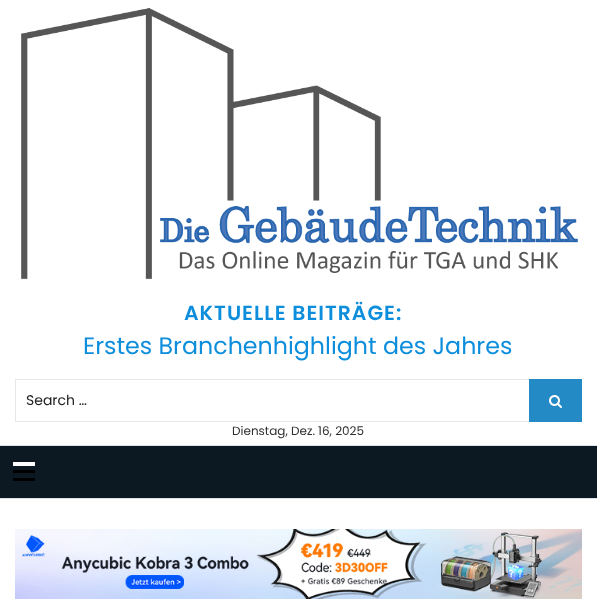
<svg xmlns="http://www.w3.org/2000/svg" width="597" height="600">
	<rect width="100%" height="100%" fill="#FFFFFF" />
	<image x="21" y="7" width="557" height="273" href="assets/img1.png" />
	<text x="184" y="320" font-family="Poppins" font-size="20.4" font-weight="600" letter-spacing="1" fill="#0C8EDC">AKTUELLE BEITRÄGE:</text>
	<text x="83" y="354" font-family="Poppins" font-size="23.75" fill="#0C8EDC">Erstes Branchenhighlight des Jahres</text>
	<rect x="15.5" y="379.5" width="514" height="42" fill="none" stroke="#E7E7E7" />
	<text x="26" y="405" font-family="Poppins" font-size="14" fill="#222222">Search …</text>
	<rect x="529" y="379" width="53" height="43" fill="#238AC5" />
	<image x="549" y="395" width="13" height="13" href="assets/img2.png" />
	<text x="232" y="435" font-family="Poppins" font-size="12" fill="#2E2F30">Dienstag, Dez. 16, 2025</text>
	<rect x="0" y="445" width="597" height="1" fill="#DEE3E7" />
	<rect x="0" y="498" width="597" height="1" fill="#DEE3E7" />
	<rect x="0" y="446" width="597" height="52" fill="#0C1923" />
	<rect x="13" y="462" width="22" height="4" fill="#FFFFFF" />
	<rect x="13" y="470" width="22" height="3" fill="#000000" />
	<rect x="13" y="478" width="22" height="3" fill="#000000" />
	<image x="15" y="529" width="567" height="70" href="assets/img3.png" />
</svg>
